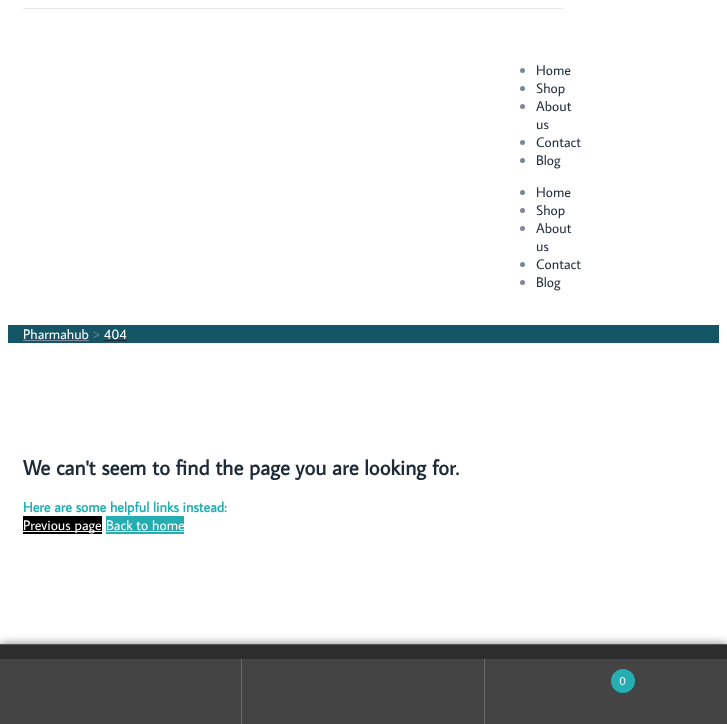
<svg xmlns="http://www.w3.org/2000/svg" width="727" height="724">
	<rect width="100%" height="100%" fill="#FFFFFF" />
	<rect x="23" y="8" width="540" height="1" fill="#E8E8E8" />
	<circle cx="522.5" cy="70.5" r="2.5" fill="#7D879C" />
	<text x="536" y="75" font-family="Average Sans" font-size="14" fill="#1D2A38">Home</text>
	<circle cx="522.5" cy="88.5" r="2.5" fill="#7D879C" />
	<text x="536" y="93" font-family="Average Sans" font-size="14" fill="#1D2A38">Shop</text>
	<circle cx="522.5" cy="106.5" r="2.5" fill="#7D879C" />
	<g font-family="Average Sans" font-size="14" fill="#1D2A38">
		<text x="536" y="111">About</text>
		<text x="536" y="129">us</text>
	</g>
	<circle cx="522.5" cy="142.5" r="2.5" fill="#7D879C" />
	<text x="536" y="147" font-family="Average Sans" font-size="14" fill="#1D2A38">Contact</text>
	<circle cx="522.5" cy="160.5" r="2.5" fill="#7D879C" />
	<text x="536" y="165" font-family="Average Sans" font-size="14" fill="#1D2A38">Blog</text>
	<circle cx="522.5" cy="192.5" r="2.5" fill="#7D879C" />
	<text x="536" y="197" font-family="Average Sans" font-size="14" fill="#1D2A38">Home</text>
	<circle cx="522.5" cy="210.5" r="2.5" fill="#7D879C" />
	<text x="536" y="215" font-family="Average Sans" font-size="14" fill="#1D2A38">Shop</text>
	<circle cx="522.5" cy="228.5" r="2.5" fill="#7D879C" />
	<g font-family="Average Sans" font-size="14" fill="#1D2A38">
		<text x="536" y="233">About</text>
		<text x="536" y="251">us</text>
	</g>
	<circle cx="522.5" cy="264.5" r="2.5" fill="#7D879C" />
	<text x="536" y="269" font-family="Average Sans" font-size="14" fill="#1D2A38">Contact</text>
	<circle cx="522.5" cy="282.5" r="2.5" fill="#7D879C" />
	<text x="536" y="287" font-family="Average Sans" font-size="14" fill="#1D2A38">Blog</text>
	<rect x="8" y="325" width="711" height="18" fill="#145566" />
	<text x="23" y="339" font-family="Average Sans" font-size="14" fill="#FFFFFF">Pharmahub</text>
	<rect x="23" y="340" width="66" height="1" fill="#7D879C" />
	<text x="93" y="339" font-family="Average Sans" font-size="14" fill="#7D879C">&gt;</text>
	<text x="104" y="339" font-family="Average Sans" font-size="14" fill="#FFFFFF">404</text>
	<rect x="104" y="340" width="23" height="1" fill="#1D2A38" />
	<text x="23" y="475" font-family="Average Sans" font-size="21" font-weight="700" fill="#1D2A38">We can't seem to find the page you are looking for.</text>
	<text x="23" y="512" font-family="Average Sans" font-size="14" font-weight="700" fill="#24AEB1">Here are some helpful links instead:</text>
	<rect x="23" y="516" width="79" height="18" fill="#000000" />
	<rect x="23" y="531" width="79" height="1" fill="#FFFFFF" />
	<text x="23" y="530" font-family="Average Sans" font-size="14" fill="#FFFFFF">Previous page</text>
	<rect x="106" y="516" width="78" height="18" fill="#24AEB1" />
	<text x="106" y="530" font-family="Average Sans" font-size="14" fill="#FFFFFF">Back to home</text>
	<rect x="106" y="531" width="78" height="1" fill="#FFFFFF" />
	<rect x="0" y="644" width="727" height="80" fill="#000000" fill-opacity="0.5" filter="blur(5px)" />
	<rect x="0" y="645" width="727" height="14" fill="#2D2D2D" />
	<rect x="0" y="644" width="727" height="1" fill="#575757" />
	<rect x="0" y="659" width="241" height="65" fill="#444444" />
	<rect x="241" y="659" width="1" height="65" fill="#696969" />
	<rect x="242" y="659" width="242" height="65" fill="#444444" />
	<rect x="484" y="659" width="1" height="65" fill="#696969" />
	<rect x="485" y="659" width="242" height="65" fill="#444444" />
	<circle cx="623" cy="681" r="12" fill="#24AEB1" />
	<text x="619" y="685" font-family="Average Sans" font-size="12" fill="#F3F3F3">0</text>
</svg>
